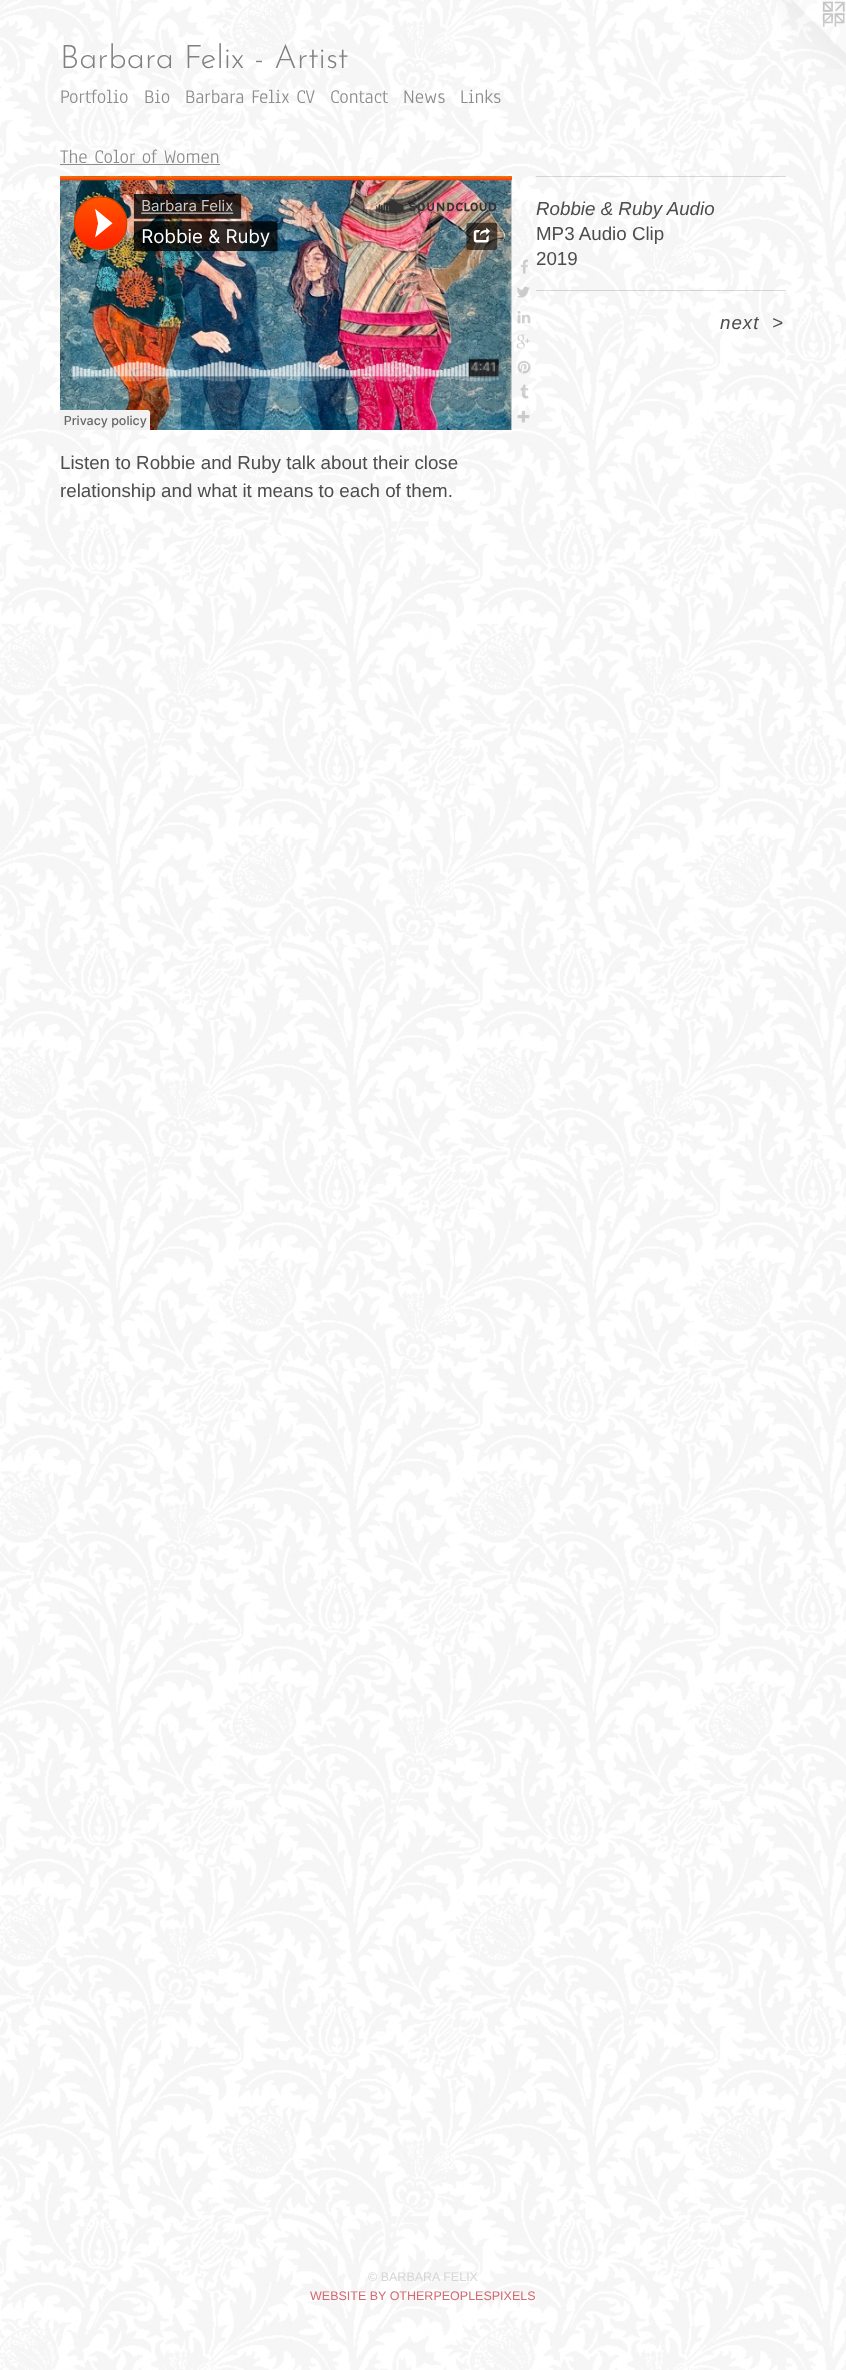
<svg xmlns="http://www.w3.org/2000/svg" width="846" height="2370">
	<rect width="100%" height="100%" fill="#FFFFFF" />
	<image x="0" y="0" width="846" height="2370" href="assets/img1.png" />
	<text x="60" y="68" font-family="Josefin Sans" font-size="32.5" font-weight="100" fill="#808080">Barbara Felix - Artist</text>
	<image x="777" y="0" width="69" height="69" href="assets/img2.png" />
	<g font-family="Anaheim" font-size="20" fill="#8C8C8C">
		<text x="60" y="103">Portfolio</text>
		<text x="144" y="103">Bio</text>
		<text x="185" y="103">Barbara Felix CV</text>
		<text x="330" y="103">Contact</text>
		<text x="403" y="103">News</text>
		<text x="460" y="103">Links</text>
		<text x="60" y="163">The Color of Women</text>
	</g>
	<rect x="60" y="164" width="160" height="1" fill="#8C8C8C" />
	<image x="60" y="176" width="452" height="254" href="assets/img3.png" />
	<image x="520" y="259" width="8" height="15" href="assets/img4.png" />
	<image x="517" y="286" width="13" height="12" href="assets/img5.png" />
	<image x="517" y="311" width="14" height="13" href="assets/img6.png" />
	<image x="516" y="334" width="14" height="15" href="assets/img7.png" />
	<image x="517" y="360" width="14" height="14" href="assets/img8.png" />
	<image x="520" y="384" width="9" height="15" href="assets/img9.png" />
	<image x="517" y="410" width="13" height="13" href="assets/img10.png" />
	<rect x="536" y="176" width="250" height="1" fill="#4D4D4D" fill-opacity="0.2" />
	<text x="536" y="215" font-family="Liberation Sans" font-size="18.75" font-style="italic" fill="#4D4D4D">Robbie &amp; Ruby Audio</text>
	<g font-family="Liberation Sans" font-size="18.75" fill="#4D4D4D">
		<text x="536" y="240">MP3 Audio Clip</text>
		<text x="536" y="265">2019</text>
	</g>
	<rect x="536" y="290" width="250" height="1" fill="#4D4D4D" fill-opacity="0.2" />
	<g font-family="Liberation Sans" font-size="18.75" font-style="italic" letter-spacing="1" fill="#4D4D4D">
		<text x="720" y="329">next</text>
		<text x="772" y="329">&gt;</text>
	</g>
	<g font-family="Liberation Sans" font-size="18.75" fill="#4D4D4D">
		<text x="60" y="469">Listen to Robbie and Ruby talk about their close</text>
		<text x="60" y="497">relationship and what it means to each of them.</text>
	</g>
	<text x="368" y="2281" font-family="Liberation Sans" font-size="12.5" fill="#D6D6D6">© BARBARA FELIX</text>
	<text x="310" y="2300" font-family="Liberation Sans" font-size="12.5" fill="#D26A70">WEBSITE BY OTHERPEOPLESPIXELS</text>
</svg>
